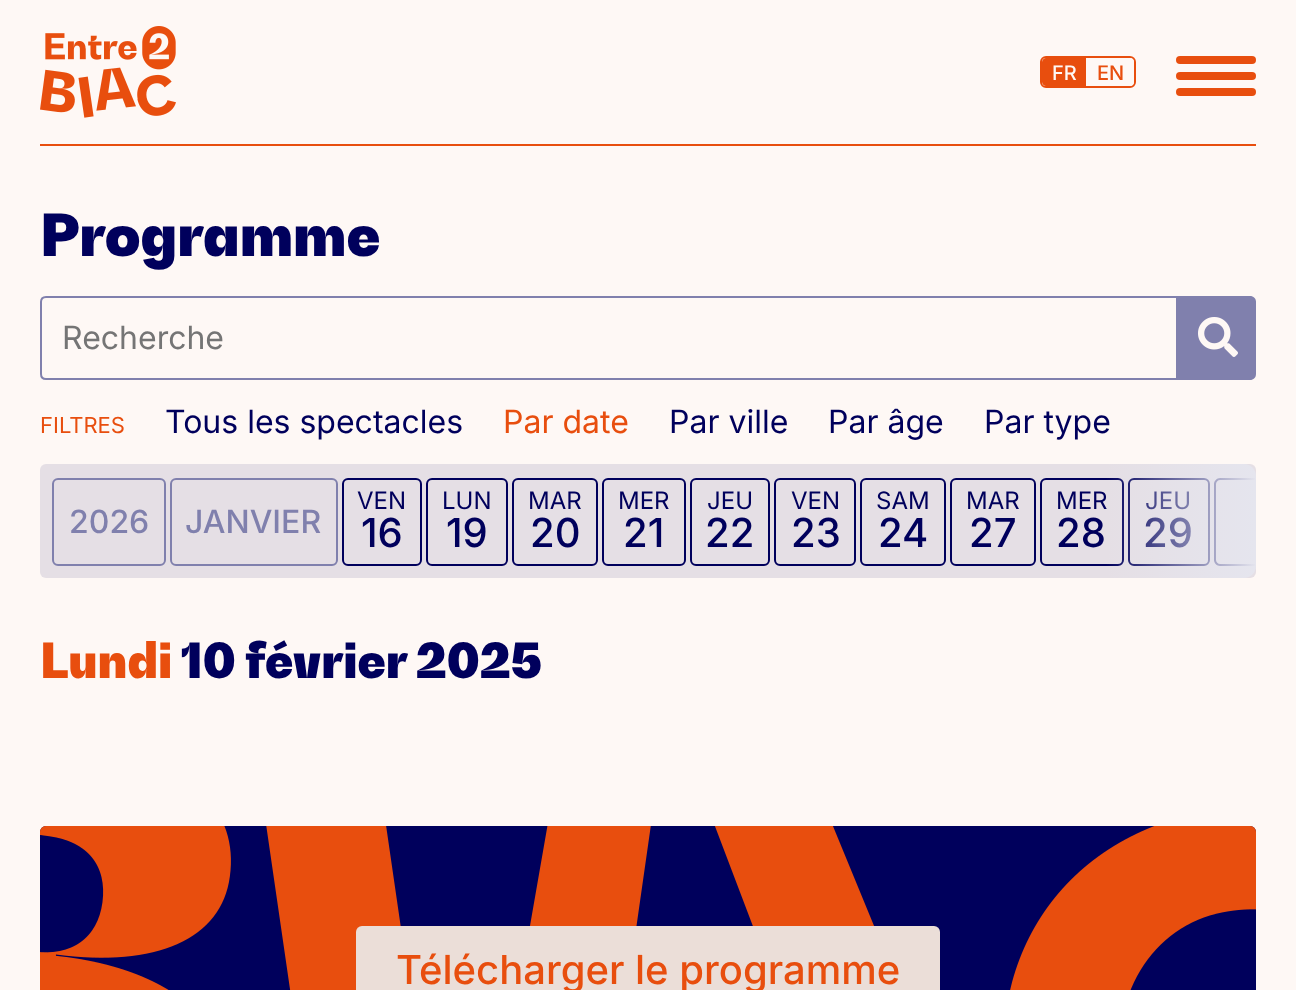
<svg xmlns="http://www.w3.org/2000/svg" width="1296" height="990">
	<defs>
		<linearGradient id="g1" gradientUnits="userSpaceOnUse" x1="1106" y1="521" x2="1256" y2="521"><stop offset="0" stop-color="#E5E5EE" stop-opacity="0" /><stop offset="1" stop-color="#E5E5EE" /></linearGradient>
	</defs>
	<rect width="100%" height="100%" fill="#FEF8F5" />
	<rect x="40" y="144" width="1216" height="2" fill="#E84E0E" />
	<image x="40" y="26" width="136" height="92" href="assets/img1.png" />
	<rect x="1041" y="57" width="94" height="30" rx="5" fill="none" stroke="#E84E0E" stroke-width="2" />
	<path d="M1046 58H1086V86H1046C1044 86 1042 84 1042 82V62C1042 60 1044 58 1046 58Z" fill="#E84E0E" />
	<text x="1052" y="80" font-family="Inter" font-size="20" font-weight="500" fill="#FEF8F5">FR</text>
	<path d="M1086 58H1130C1132 58 1134 60 1134 62V82C1134 84 1132 86 1130 86H1086Z" fill="#FEF8F5" />
	<text x="1097" y="80" font-family="Inter" font-size="20" font-weight="500" fill="#E84E0E">EN</text>
	<rect x="1176" y="72" width="80" height="8" rx="4" fill="#E84E0E" />
	<rect x="1176" y="56" width="80" height="8" rx="4" fill="#E84E0E" />
	<rect x="1176" y="88" width="80" height="8" rx="4" fill="#E84E0E" />
	<text x="40" y="256" font-family="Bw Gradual" font-size="57.5" font-weight="900" fill="#00005C">Programme</text>
	<path d="M46 297H1177V379H46C43 379 41 377 41 374V302C41 299 43 297 46 297Z" fill="none" stroke="#8080AD" stroke-width="2" />
	<text x="62" y="349" font-family="Inter" font-size="32" fill="#757575">Recherche</text>
	<path d="M1178 296H1250C1253.5 296 1256 298.5 1256 302V374C1256 377.5 1253.5 380 1250 380H1178Z" fill="#8080AD" />
	<image x="1198" y="317" width="40" height="40" href="assets/img2.png" />
	<text x="40" y="433" font-family="Inter" font-size="22" fill="#E84E0E">FILTRES</text>
	<text x="165" y="433" font-family="Inter" font-size="32" fill="#00005C">Tous les spectacles</text>
	<text x="503" y="433" font-family="Inter" font-size="32" fill="#E84E0E">Par date</text>
	<g font-family="Inter" font-size="32" fill="#00005C">
		<text x="669" y="433">Par ville</text>
		<text x="828" y="433">Par âge</text>
		<text x="984" y="433">Par type</text>
	</g>
	<rect x="40" y="464" width="1216" height="114" rx="6" fill="#E5DFE5" />
	<rect x="1041" y="479" width="82" height="86" rx="5" fill="none" stroke="#00005C" stroke-width="2" />
	<text x="1056" y="509" font-family="Inter" font-size="24" fill="#00005C">MER</text>
	<rect x="1129" y="479" width="80" height="86" rx="5" fill="none" stroke="#00005C" stroke-width="2" />
	<text x="1145" y="509" font-family="Inter" font-size="24" fill="#00005C">JEU</text>
	<text x="1143" y="547" font-family="Inter" font-size="40" font-weight="500" fill="#00005C">29</text>
	<path d="M1220 478C1217 478 1214 481 1214 484V560C1214 563 1217 566 1220 566H1256V564H1220C1218 564 1216 562 1216 560V484C1216 482 1218 480 1220 480H1256V478Z" fill="#00005C" />
	<path d="M1106 464H1244C1250.5 464 1256 469.5 1256 476V566C1256 572.5 1250.5 578 1244 578H1106Z" fill="url(#g1)" />
	<rect x="53" y="479" width="112" height="86" rx="5" fill="none" stroke="#8080AD" stroke-width="2" />
	<text x="69" y="533" font-family="Inter" font-size="32" font-weight="500" fill="#8080AD">2026</text>
	<rect x="171" y="479" width="166" height="86" rx="5" fill="none" stroke="#8080AD" stroke-width="2" />
	<text x="185" y="533" font-family="Inter" font-size="32" font-weight="500" fill="#8080AD">JANVIER</text>
	<rect x="343" y="479" width="78" height="86" rx="5" fill="none" stroke="#00005C" stroke-width="2" />
	<text x="357" y="509" font-family="Inter" font-size="24" fill="#00005C">VEN</text>
	<text x="361" y="547" font-family="Inter" font-size="40" font-weight="500" fill="#00005C">16</text>
	<rect x="427" y="479" width="80" height="86" rx="5" fill="none" stroke="#00005C" stroke-width="2" />
	<text x="442" y="509" font-family="Inter" font-size="24" fill="#00005C">LUN</text>
	<text x="446" y="547" font-family="Inter" font-size="40" font-weight="500" fill="#00005C">19</text>
	<rect x="513" y="479" width="84" height="86" rx="5" fill="none" stroke="#00005C" stroke-width="2" />
	<text x="528" y="509" font-family="Inter" font-size="24" fill="#00005C">MAR</text>
	<text x="530" y="547" font-family="Inter" font-size="40" font-weight="500" fill="#00005C">20</text>
	<rect x="603" y="479" width="82" height="86" rx="5" fill="none" stroke="#00005C" stroke-width="2" />
	<text x="618" y="509" font-family="Inter" font-size="24" fill="#00005C">MER</text>
	<text x="623" y="547" font-family="Inter" font-size="40" font-weight="500" fill="#00005C">21</text>
	<rect x="691" y="479" width="78" height="86" rx="5" fill="none" stroke="#00005C" stroke-width="2" />
	<text x="707" y="509" font-family="Inter" font-size="24" fill="#00005C">JEU</text>
	<text x="705" y="547" font-family="Inter" font-size="40" font-weight="500" fill="#00005C">22</text>
	<rect x="775" y="479" width="80" height="86" rx="5" fill="none" stroke="#00005C" stroke-width="2" />
	<text x="791" y="509" font-family="Inter" font-size="24" fill="#00005C">VEN</text>
	<text x="791" y="547" font-family="Inter" font-size="40" font-weight="500" fill="#00005C">23</text>
	<rect x="861" y="479" width="84" height="86" rx="5" fill="none" stroke="#00005C" stroke-width="2" />
	<text x="876" y="509" font-family="Inter" font-size="24" fill="#00005C">SAM</text>
	<text x="878" y="547" font-family="Inter" font-size="40" font-weight="500" fill="#00005C">24</text>
	<rect x="951" y="479" width="84" height="86" rx="5" fill="none" stroke="#00005C" stroke-width="2" />
	<text x="966" y="509" font-family="Inter" font-size="24" fill="#00005C">MAR</text>
	<g font-family="Inter" font-size="40" font-weight="500" fill="#00005C">
		<text x="969" y="547">27</text>
		<text x="1056" y="547">28</text>
	</g>
	<text x="40" y="678" font-family="Bw Gradual" font-size="48" font-weight="900" fill="#E84E0E">Lundi</text>
	<text x="181" y="678" font-family="Bw Gradual" font-size="48" font-weight="900" fill="#00005C">10 février 2025</text>
	<rect x="40" y="826" width="1216" height="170" rx="6" fill="#00005C" />
	<image x="40" y="826" width="1216" height="164" href="assets/img3.png" />
	<rect x="356" y="926" width="584" height="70" rx="6" fill="#EBDED8" />
	<text x="396" y="984" font-family="Inter" font-size="40" font-weight="500" fill="#E84E0E">Télécharger le programme</text>
</svg>
